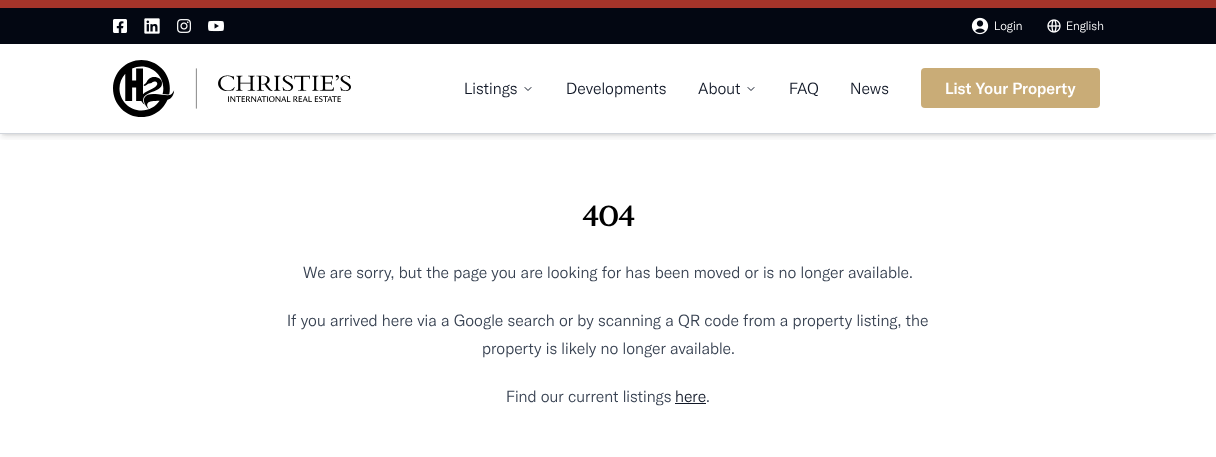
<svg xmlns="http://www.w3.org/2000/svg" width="1216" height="457">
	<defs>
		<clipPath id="clip1"><rect x="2" y="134" width="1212" height="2" /></clipPath>
		<clipPath id="clip2"><rect x="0" y="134" width="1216" height="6" /></clipPath>
	</defs>
	<rect width="100%" height="100%" fill="#FFFFFF" />
	<g clip-path="url(#clip1)">
		<rect x="2" y="4" width="1212" height="130" fill="#000000" fill-opacity="0.1" filter="blur(2px)" />
	</g>
	<g clip-path="url(#clip2)">
		<rect x="1" y="5" width="1214" height="132" fill="#000000" fill-opacity="0.1" filter="blur(3px)" />
	</g>
	<rect x="0" y="133" width="1216" height="1" fill="#D1D5DB" />
	<rect x="0" y="0" width="1216" height="8" fill="#A4342A" />
	<rect x="0" y="8" width="1216" height="36" fill="#030712" />
	<image x="113" y="19" width="14" height="14" href="assets/img1.png" />
	<image x="144" y="18" width="16" height="16" href="assets/img2.png" />
	<image x="177" y="19" width="14" height="14" href="assets/img3.png" />
	<image x="208" y="20" width="16" height="12" href="assets/img4.png" />
	<image x="971" y="17" width="18" height="18" href="assets/img5.png" />
	<text x="994" y="30" font-family="GT America" font-size="12" font-weight="300" fill="#FFFFFF">Login</text>
	<image x="1047" y="19" width="14" height="14" href="assets/img6.png" />
	<text x="1066" y="30" font-family="GT America" font-size="12" font-weight="300" fill="#FFFFFF">English</text>
	<image x="113" y="60" width="238" height="57" href="assets/img7.png" />
	<text x="464" y="94" font-family="GT America" font-size="16" font-weight="300" fill="#111827">Listings</text>
	<path d="M525 87.5L528 90.5L531 87.5" fill="none" stroke="#111827" stroke-linecap="round" stroke-linejoin="round" />
	<g font-family="GT America" font-size="16" font-weight="300" fill="#111827">
		<text x="566" y="94">Developments</text>
		<text x="698" y="94">About</text>
	</g>
	<path d="M748 87.5L751 90.5L754 87.5" fill="none" stroke="#111827" stroke-linecap="round" stroke-linejoin="round" />
	<g font-family="GT America" font-size="16" font-weight="300" fill="#111827">
		<text x="789" y="94">FAQ</text>
		<text x="850" y="94">News</text>
	</g>
	<rect x="921" y="68" width="179" height="40" rx="4" fill="#C9AC77" />
	<text x="945" y="94" font-family="GT America" font-size="16" font-weight="500" fill="#FFFFFF">List Your Property</text>
	<text x="582" y="226" font-family="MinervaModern" font-size="30" font-weight="700" letter-spacing="-1" fill="#000000">404</text>
	<g font-family="GT America" font-size="16" font-weight="300" fill="#374151">
		<text x="303" y="278">We are sorry, but the page you are looking for has been moved or is no longer available.</text>
		<text x="287" y="326">If you arrived here via a Google search or by scanning a QR code from a property listing, the</text>
		<text x="482" y="354">property is likely no longer available.</text>
		<text x="506" y="402">Find our current listings</text>
	</g>
	<text x="675" y="402" font-family="GT America" font-size="16" font-weight="300" fill="#111827">here</text>
	<rect x="675" y="403" width="31" height="1" fill="#111827" />
	<text x="706" y="402" font-family="GT America" font-size="16" font-weight="300" fill="#374151">.</text>
</svg>
